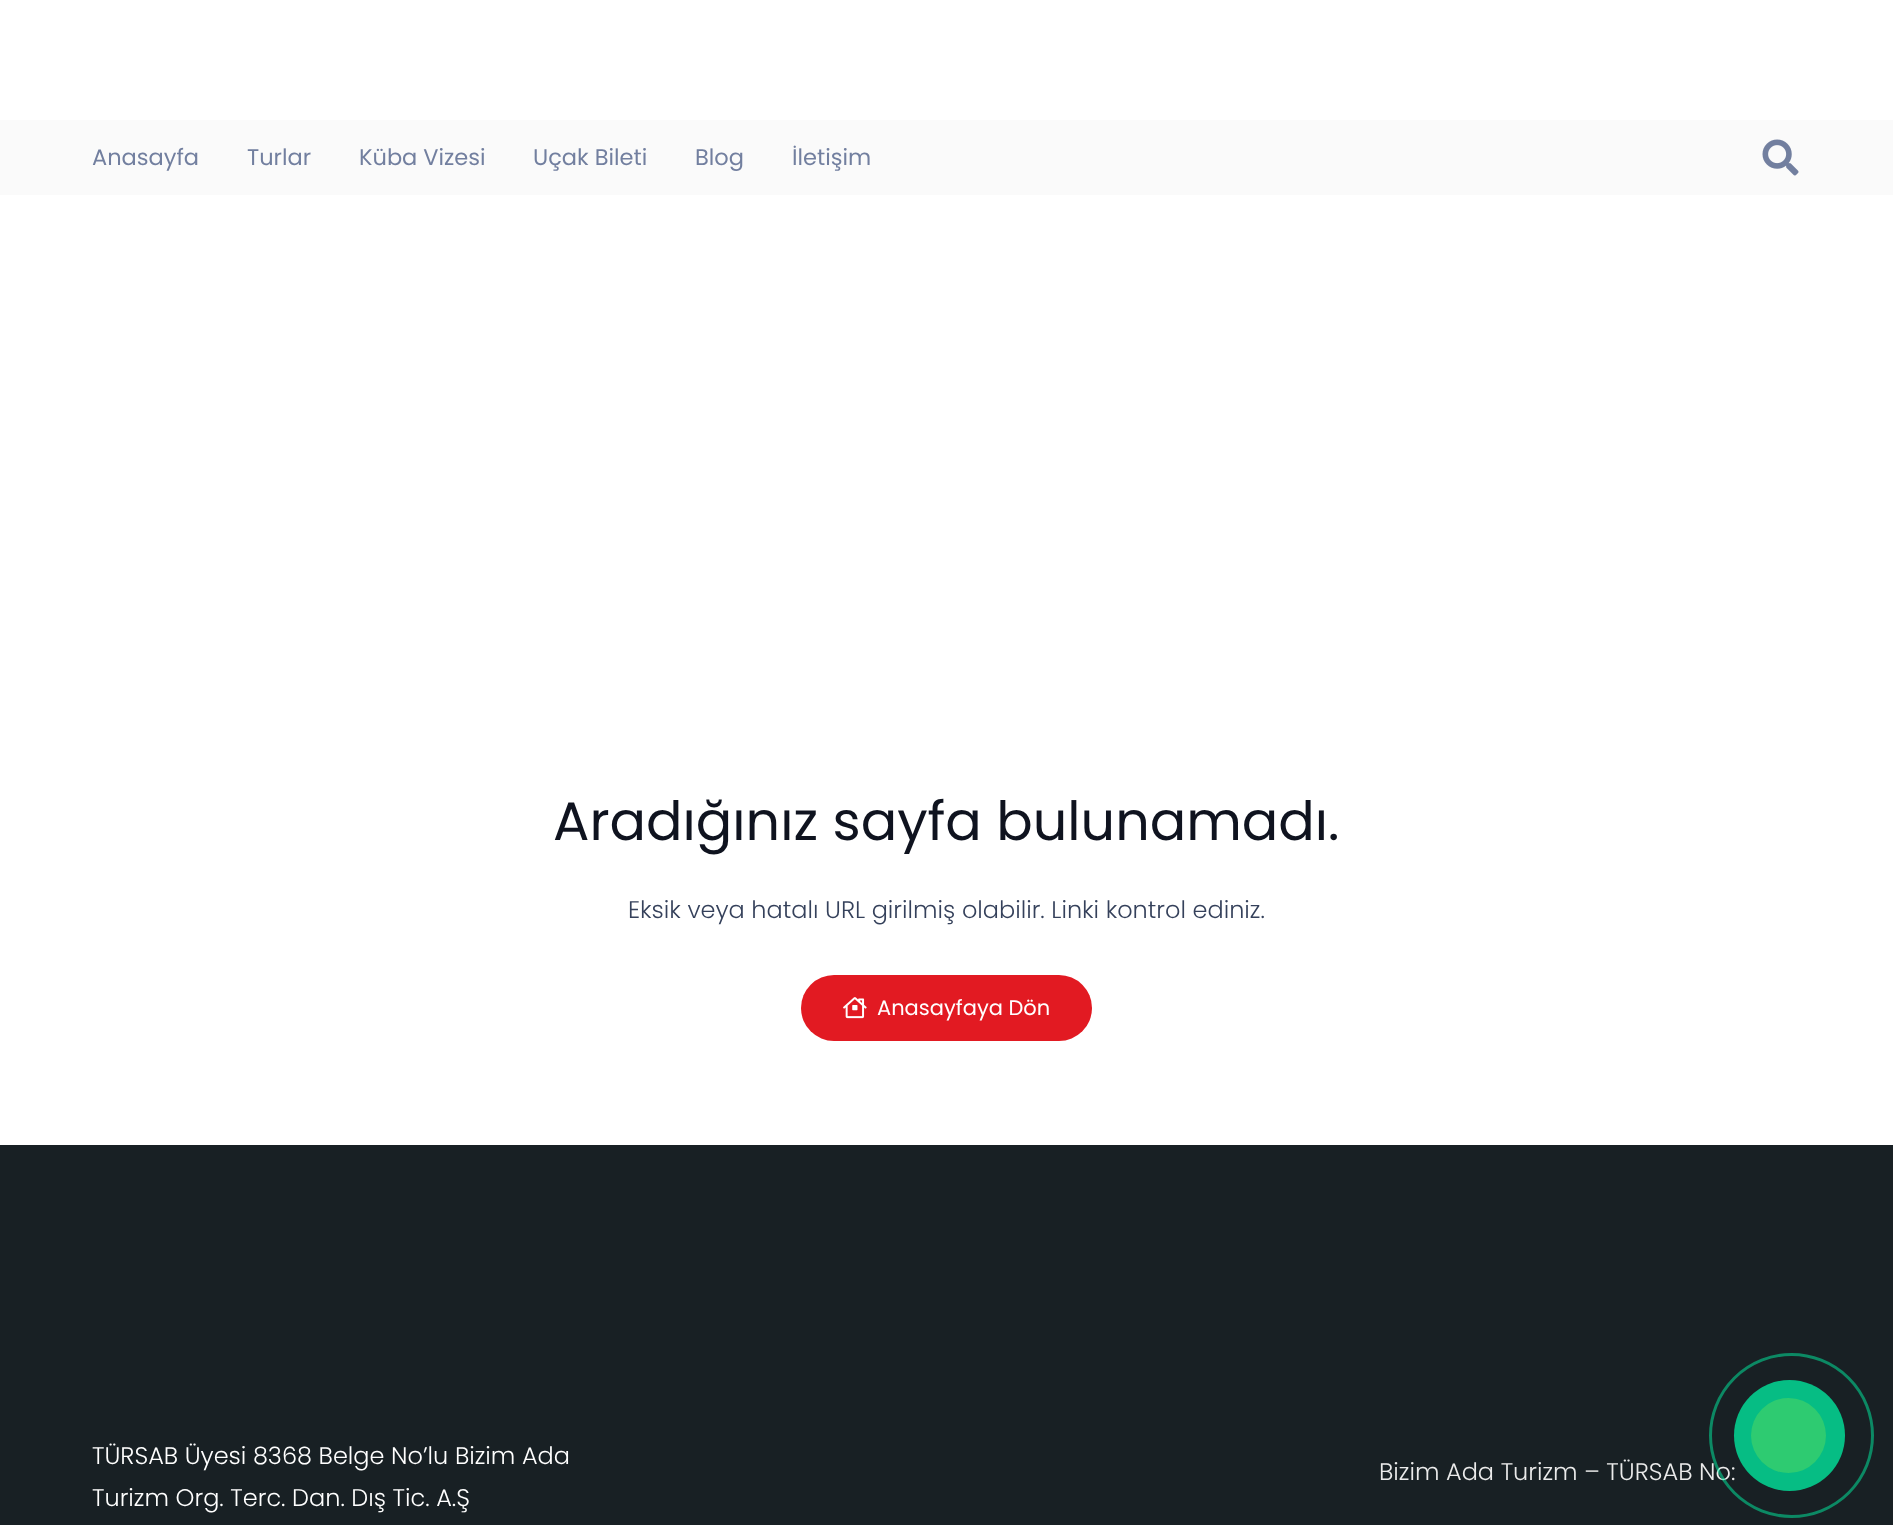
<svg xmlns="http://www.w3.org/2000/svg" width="1893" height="1525">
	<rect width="100%" height="100%" fill="#FFFFFF" />
	<rect x="0" y="120" width="1893" height="75" fill="#FAFAFA" />
	<g font-family="Poppins" font-size="22.5" fill="#727F9F">
		<text x="92" y="165">Anasayfa</text>
		<text x="247" y="165">Turlar</text>
		<text x="359" y="165">Küba Vizesi</text>
		<text x="533" y="165">Uçak Bileti</text>
		<text x="695" y="165">Blog</text>
		<text x="792" y="165">İletişim</text>
	</g>
	<image x="1762" y="139" width="37" height="37" href="assets/img1.png" />
	<text x="553" y="840" font-family="Poppins" font-size="54" fill="#0F131F">Aradığınız sayfa bulunamadı.</text>
	<text x="628" y="918" font-family="Poppins" font-size="24" font-weight="300" fill="#35415B">Eksik veya hatalı URL girilmiş olabilir. Linki kontrol ediniz.</text>
	<rect x="801" y="975" width="291" height="66" rx="33" fill="#E21A22" />
	<image x="843" y="997" width="24" height="22" href="assets/img2.png" />
	<text x="877" y="1015" font-family="Poppins" font-size="21" fill="#FFFFFF">Anasayfaya Dön</text>
	<rect x="0" y="1145" width="1893" height="380" fill="#182024" />
	<g font-family="Poppins" font-size="24" font-weight="300" fill="#FFFFFF">
		<text x="92" y="1464">TÜRSAB Üyesi 8368 Belge No’lu Bizim Ada</text>
		<text x="92" y="1506">Turizm Org. Terc. Dan. Dış Tic. A.Ş</text>
	</g>
	<text x="1379" y="1480" font-family="Poppins" font-size="24" font-weight="300" fill="#EBEBEB">Bizim Ada Turizm – TÜRSAB No:</text>
	<circle cx="1791.5" cy="1435.5" r="81" fill="none" stroke="#00F2A4" stroke-opacity="0.5" stroke-width="3" />
	<circle cx="1789.5" cy="1435.5" r="55.5" fill="#00F2A4" fill-opacity="0.75" />
	<circle cx="1788.5" cy="1435.5" r="37.5" fill="#2ECB71" />
</svg>
